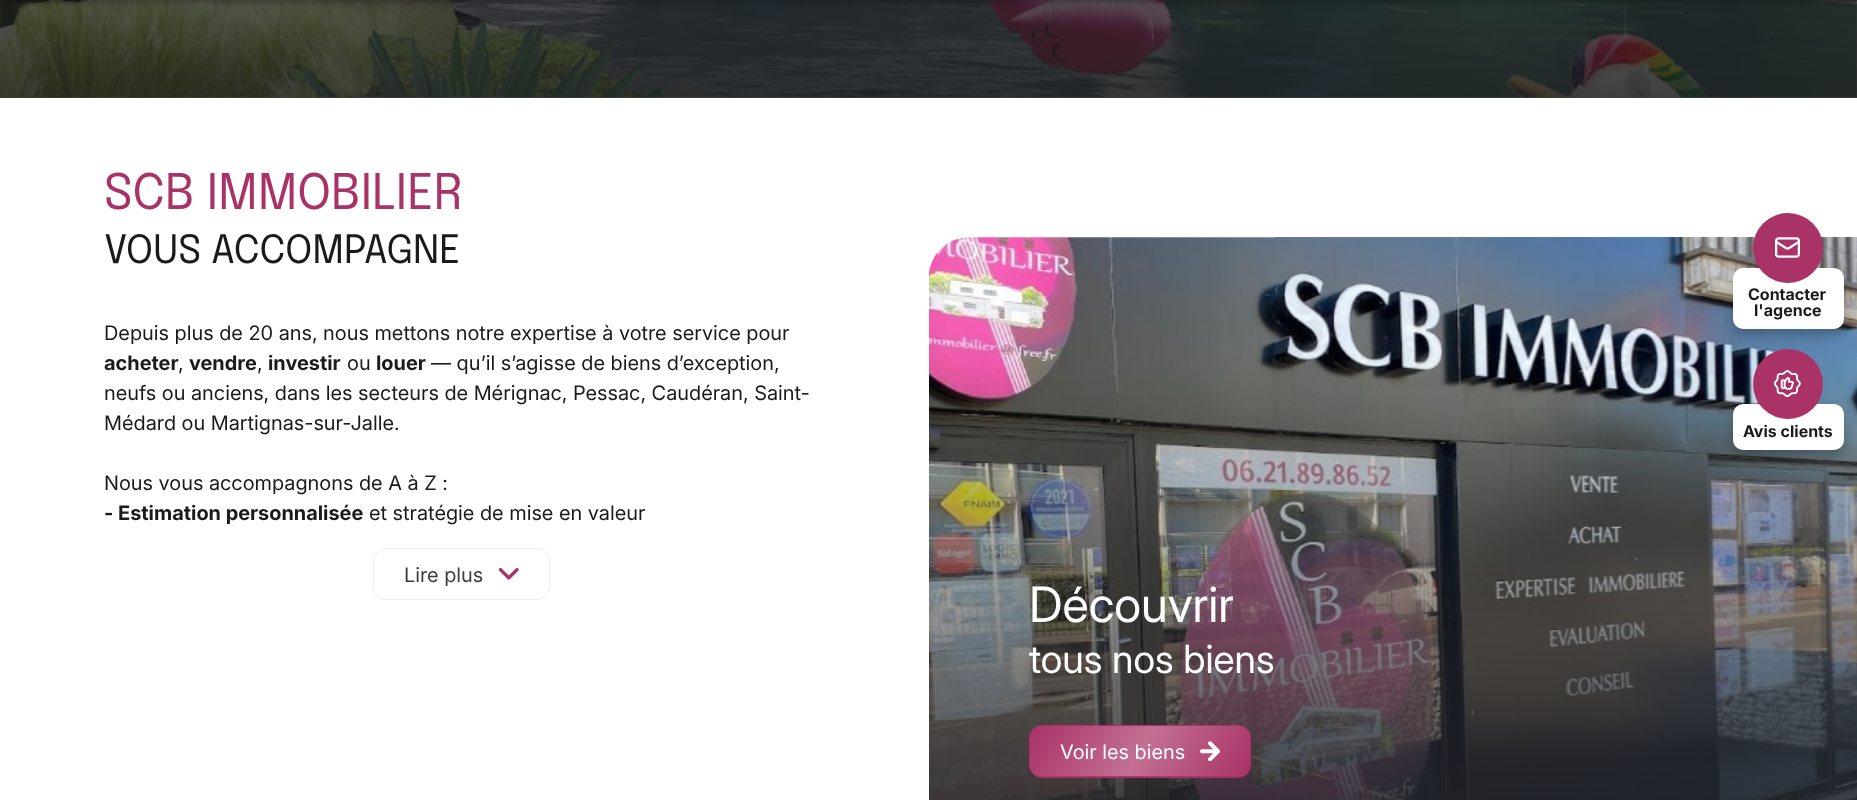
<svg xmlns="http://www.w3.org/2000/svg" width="1857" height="800">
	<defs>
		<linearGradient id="g1" gradientUnits="userSpaceOnUse" x1="929" y1="-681" x2="929" y2="98"><stop offset="0" stop-color="#1E1E1E" stop-opacity="0" /><stop offset="1" stop-color="#1E1E1E" stop-opacity="0.84" /></linearGradient>
		<linearGradient id="g2" gradientUnits="userSpaceOnUse" x1="1047" y1="697" x2="1233" y2="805"><stop offset="0" stop-color="#FFFFFF" stop-opacity="0" /><stop offset="0.5" stop-color="#FFFFFF" stop-opacity="0.3" /><stop offset="1" stop-color="#FFFFFF" stop-opacity="0" /></linearGradient>
	</defs>
	<rect width="100%" height="100%" fill="#FFFFFF" />
	<image x="0" y="0" width="1857" height="98" href="assets/img1.png" />
	<rect x="0" y="0" width="1857" height="98" fill="url(#g1)" />
	<rect x="0" y="-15" width="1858" height="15" fill="#0A0A0A" fill-opacity="0.5" filter="blur(5px)" />
	<text x="104" y="209" font-family="Epilogue" font-size="48.75" fill="#A93266">SCB IMMOBILIER</text>
	<text x="104" y="263" font-family="Epilogue" font-size="39" fill="#191B19">VOUS ACCOMPAGNE</text>
	<text x="104" y="340" font-family="Inter" font-size="20" fill="#191B19">Depuis plus de 20 ans, nous mettons notre expertise à votre service pour</text>
	<text x="104" y="370" font-family="Inter" font-size="20" font-weight="700" fill="#191B19">acheter</text>
	<text x="178" y="370" font-family="Inter" font-size="20" fill="#191B19">,</text>
	<text x="189" y="370" font-family="Inter" font-size="20" font-weight="700" fill="#191B19">vendre</text>
	<text x="257" y="370" font-family="Inter" font-size="20" fill="#191B19">,</text>
	<text x="268" y="370" font-family="Inter" font-size="20" font-weight="700" fill="#191B19">investir</text>
	<text x="347" y="370" font-family="Inter" font-size="20" fill="#191B19">ou</text>
	<text x="376" y="370" font-family="Inter" font-size="20" font-weight="700" fill="#191B19">louer</text>
	<g font-family="Inter" font-size="20" fill="#191B19">
		<text x="431" y="370">— qu’il s’agisse de biens d’exception,</text>
		<text x="104" y="400">neufs ou anciens, dans les secteurs de Mérignac, Pessac, Caudéran, Saint-</text>
		<text x="104" y="430">Médard ou Martignas-sur-Jalle.</text>
		<text x="104" y="490">Nous vous accompagnons de A à Z :</text>
	</g>
	<text x="104" y="520" font-family="Inter" font-size="20" font-weight="700" fill="#191B19">- Estimation personnalisée</text>
	<text x="369" y="520" font-family="Inter" font-size="20" fill="#191B19">et stratégie de mise en valeur</text>
	<rect x="373.5" y="548.5" width="176" height="51" rx="12.5" fill="none" stroke="#EFEFEF" />
	<text x="404" y="582" font-family="Inter" font-size="20" fill="#3C3D3E">Lire plus</text>
	<image x="499" y="567" width="20" height="13" href="assets/img2.png" />
	<image x="929" y="237" width="928" height="563" href="assets/img3.png" />
	<text x="1029" y="622" font-family="'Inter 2'" font-size="48.75" fill="#FFFFFF">Découvrir</text>
	<text x="1029" y="673" font-family="'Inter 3'" font-size="39" fill="#FFFFFF">tous nos biens</text>
	<rect x="1029.5" y="725.5" width="221" height="52" rx="12.5" fill="#A93266" stroke="#A93266" />
	<text x="1060" y="759" font-family="Inter" font-size="20" fill="#FFFFFF">Voir les biens</text>
	<image x="1200" y="741" width="20" height="20" href="assets/img4.png" />
	<rect x="1030" y="726" width="220" height="50" rx="11" fill="url(#g2)" />
	<rect x="1733" y="274" width="111" height="61" rx="10" fill="#0A0A0A" fill-opacity="0.25" filter="blur(6px)" />
	<rect x="1733" y="268" width="111" height="61" rx="10" fill="#FFFFFF" />
	<circle cx="1788" cy="248" r="35" fill="#A93266" />
	<image x="1775" y="237" width="25" height="21" href="assets/img5.png" />
	<g font-family="'Inter 2'" font-size="16" font-weight="700" fill="#191B19">
		<text x="1748" y="300">Contacter</text>
		<text x="1754" y="316">l'agence</text>
	</g>
	<rect x="1733" y="410" width="111" height="46" rx="10" fill="#0A0A0A" fill-opacity="0.25" filter="blur(6px)" />
	<rect x="1733" y="404" width="111" height="46" rx="10" fill="#FFFFFF" />
	<circle cx="1788" cy="384" r="35" fill="#A93266" />
	<image x="1774" y="370" width="27" height="27" href="assets/img6.png" />
	<text x="1743" y="437" font-family="'Inter 2'" font-size="16" font-weight="700" fill="#191B19">Avis clients</text>
</svg>
